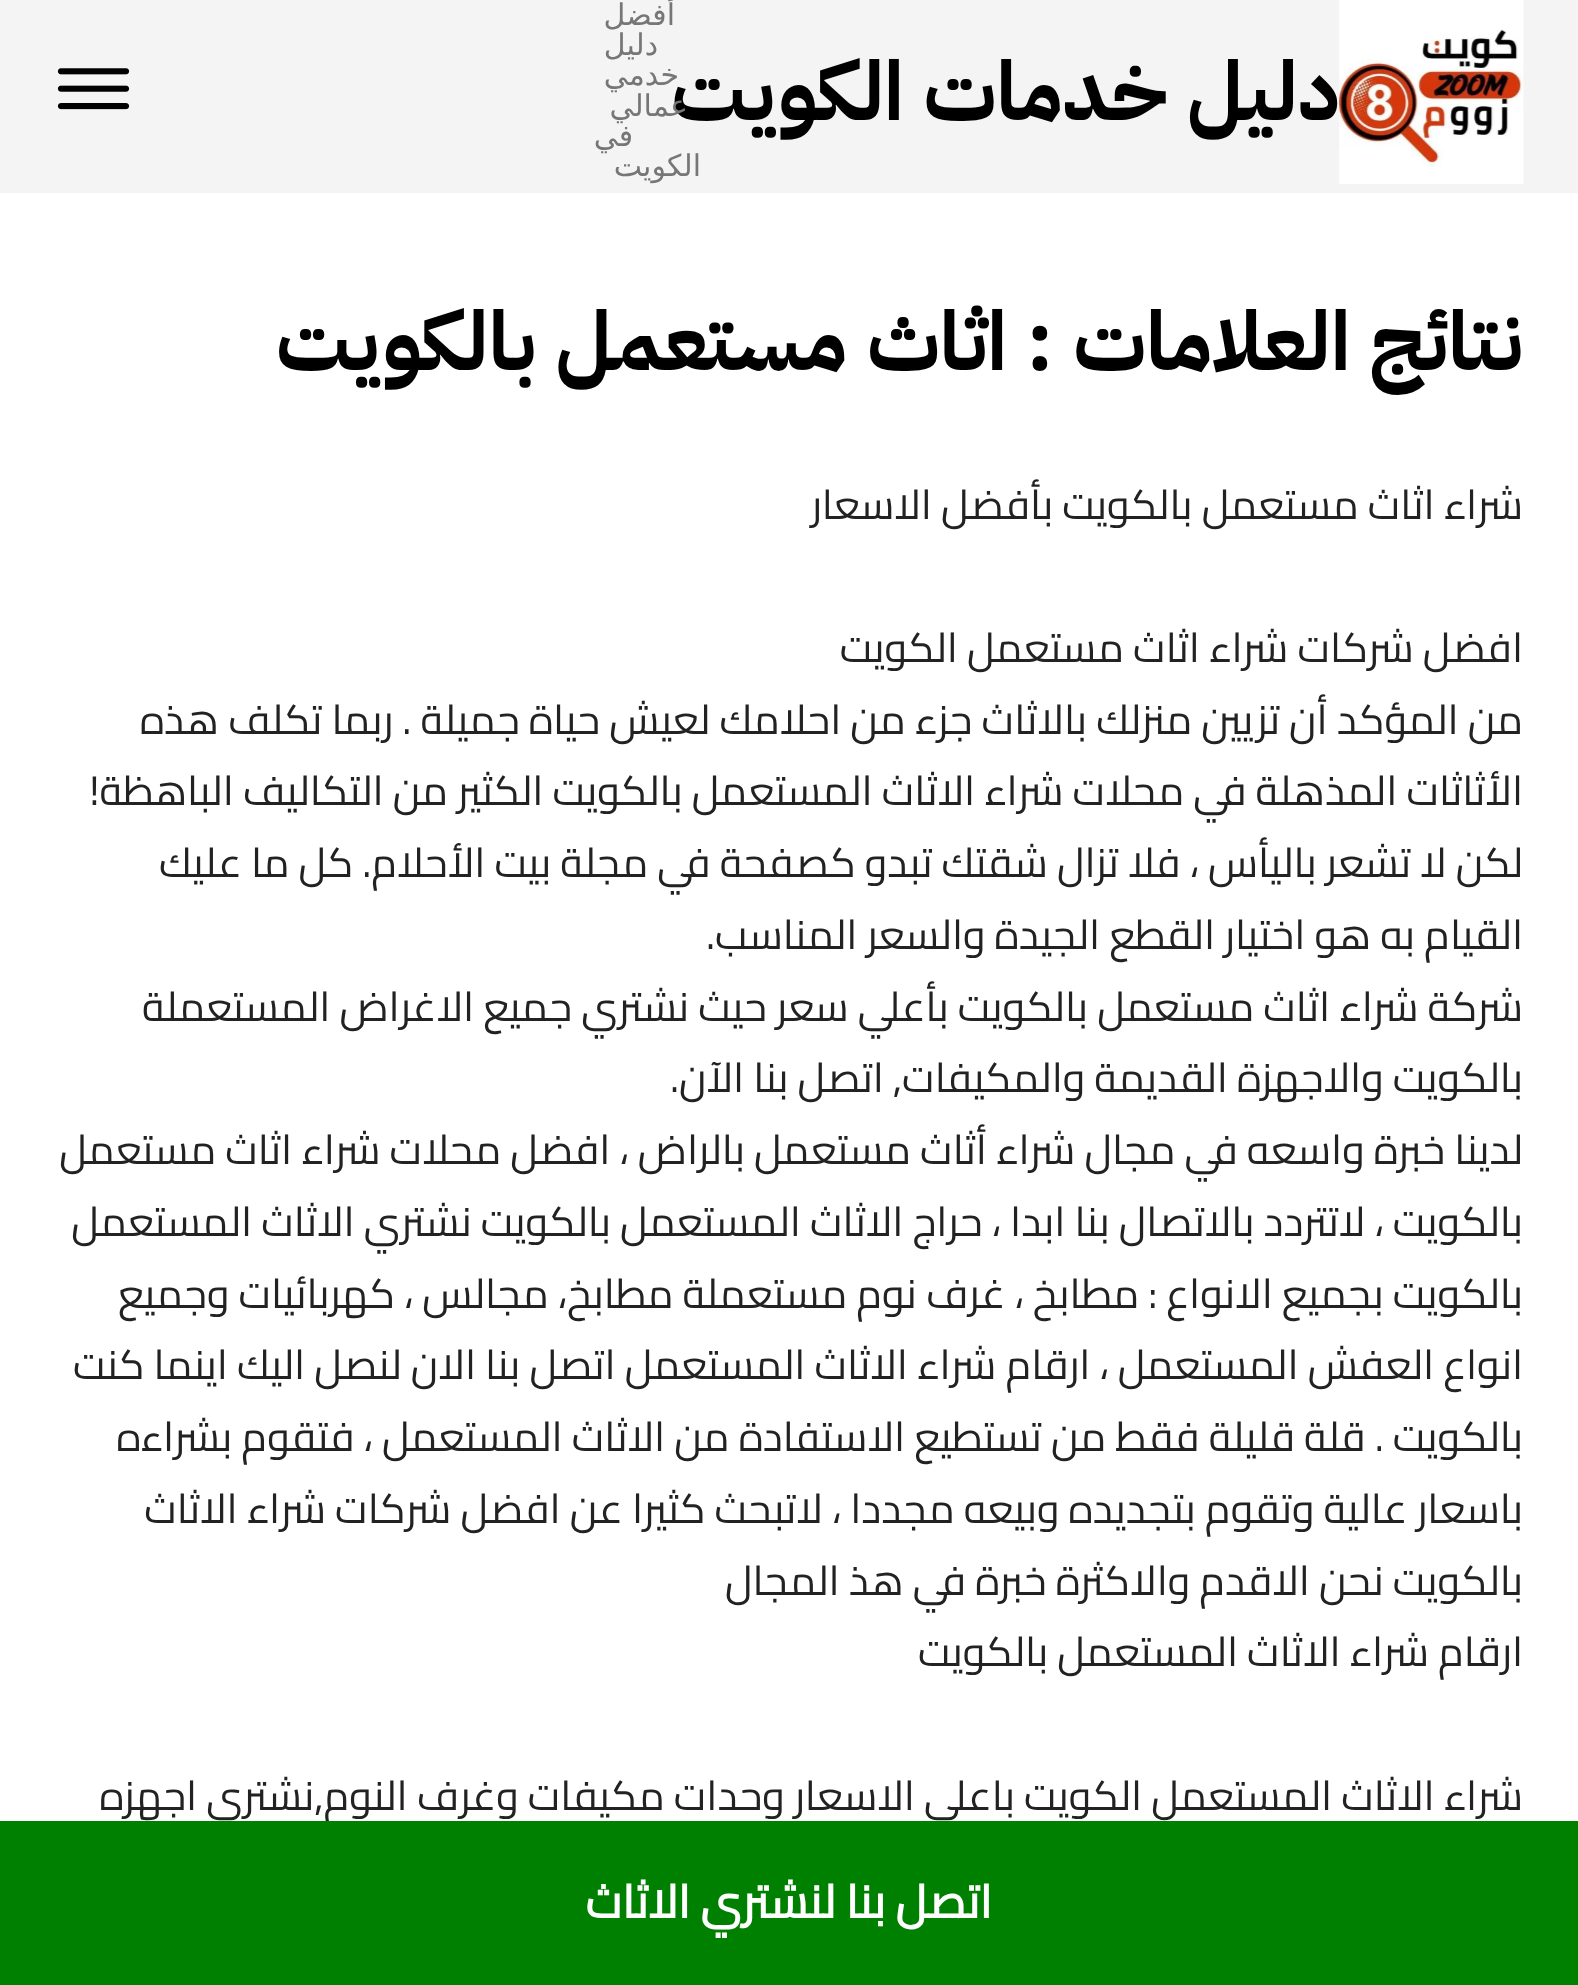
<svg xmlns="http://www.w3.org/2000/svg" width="1578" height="1985">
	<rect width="100%" height="100%" fill="#FFFFFF" />
	<rect x="0" y="0" width="1578" height="193" fill="#F4F4F4" />
	<image x="1339" y="0" width="185" height="184" href="assets/img1.png" />
	<text x="1340" y="120" font-family="IBM Plex Sans Arabic" font-size="82.5" font-weight="700" direction="rtl" fill="#000000">دليل خدمات الكويت</text>
	<g font-family="DejaVu Sans" font-size="30" letter-spacing="5" direction="rtl" fill="#767676">
		<text x="675" y="25">أفضل</text>
		<text x="658" y="55">دليل</text>
		<text x="679" y="85">خدمي</text>
		<text x="688" y="116">عمالي</text>
		<text x="633" y="146">في</text>
		<text x="701" y="176">الكويت</text>
	</g>
	<image x="57" y="68" width="73" height="42" href="assets/img2.png" />
	<g font-family="IBM Plex Sans Arabic" font-size="82.5" font-weight="700" direction="rtl" fill="#000000">
		<text x="1523" y="370">نتائج العلامات :</text>
		<text x="1007" y="370">اثاث مستعمل بالكويت</text>
	</g>
	<g font-family="Cairo" font-size="41.25" direction="rtl" fill="#222222">
		<text x="1523" y="519">شراء اثاث مستعمل بالكويت بأفضل الاسعار</text>
		<text x="1523" y="662">افضل شركات شراء اثاث مستعمل الكويت</text>
		<text x="1523" y="734">من المؤكد أن تزيين منزلك بالاثاث جزء من احلامك لعيش حياة جميلة . ربما تكلف هذه</text>
		<text x="1523" y="805">الأثاثات المذهلة في محلات شراء الاثاث المستعمل بالكويت الكثير من التكاليف الباهظة!</text>
		<text x="1523" y="877">لكن لا تشعر باليأس ، فلا تزال شقتك تبدو كصفحة في مجلة بيت الأحلام. كل ما عليك</text>
		<text x="1523" y="949">القيام به هو اختيار القطع الجيدة والسعر المناسب.</text>
		<text x="1523" y="1021">شركة شراء اثاث مستعمل بالكويت بأعلي سعر حيث نشتري جميع الاغراض المستعملة</text>
		<text x="1523" y="1092">بالكويت والاجهزة القديمة والمكيفات, اتصل بنا الآن.</text>
		<text x="1523" y="1164">لدينا خبرة واسعه في مجال شراء أثاث مستعمل بالراض ، افضل محلات شراء اثاث مستعمل</text>
		<text x="1523" y="1236">بالكويت ، لاتتردد بالاتصال بنا ابدا ، حراج الاثاث المستعمل بالكويت نشتري الاثاث المستعمل</text>
		<text x="1523" y="1308">بالكويت بجميع الانواع : مطابخ ، غرف نوم مستعملة مطابخ، مجالس ، كهربائيات وجميع</text>
		<text x="1523" y="1379">انواع العفش المستعمل ، ارقام شراء الاثاث المستعمل اتصل بنا الان لنصل اليك اينما كنت</text>
		<text x="1523" y="1451">بالكويت . قلة قليلة فقط من تستطيع الاستفادة من الاثاث المستعمل ، فتقوم بشراءه</text>
		<text x="1523" y="1523">باسعار عالية وتقوم بتجديده وبيعه مجددا ، لاتبحث كثيرا عن افضل شركات شراء الاثاث</text>
		<text x="1523" y="1595">بالكويت نحن الاقدم والاكثرة خبرة في هذ المجال</text>
		<text x="1523" y="1666">ارقام شراء الاثاث المستعمل بالكويت</text>
		<text x="1523" y="1810">شراء الاثاث المستعمل الكويت باعلى الاسعار وحدات مكيفات وغرف النوم,نشترى اجهزه</text>
	</g>
	<rect x="0" y="1821" width="1578" height="164" fill="#008000" />
	<text x="992" y="1918" font-family="Cairo" font-size="46.25" font-weight="700" direction="rtl" fill="#FFFFFF">اتصل بنا لنشتري الاثاث</text>
</svg>
